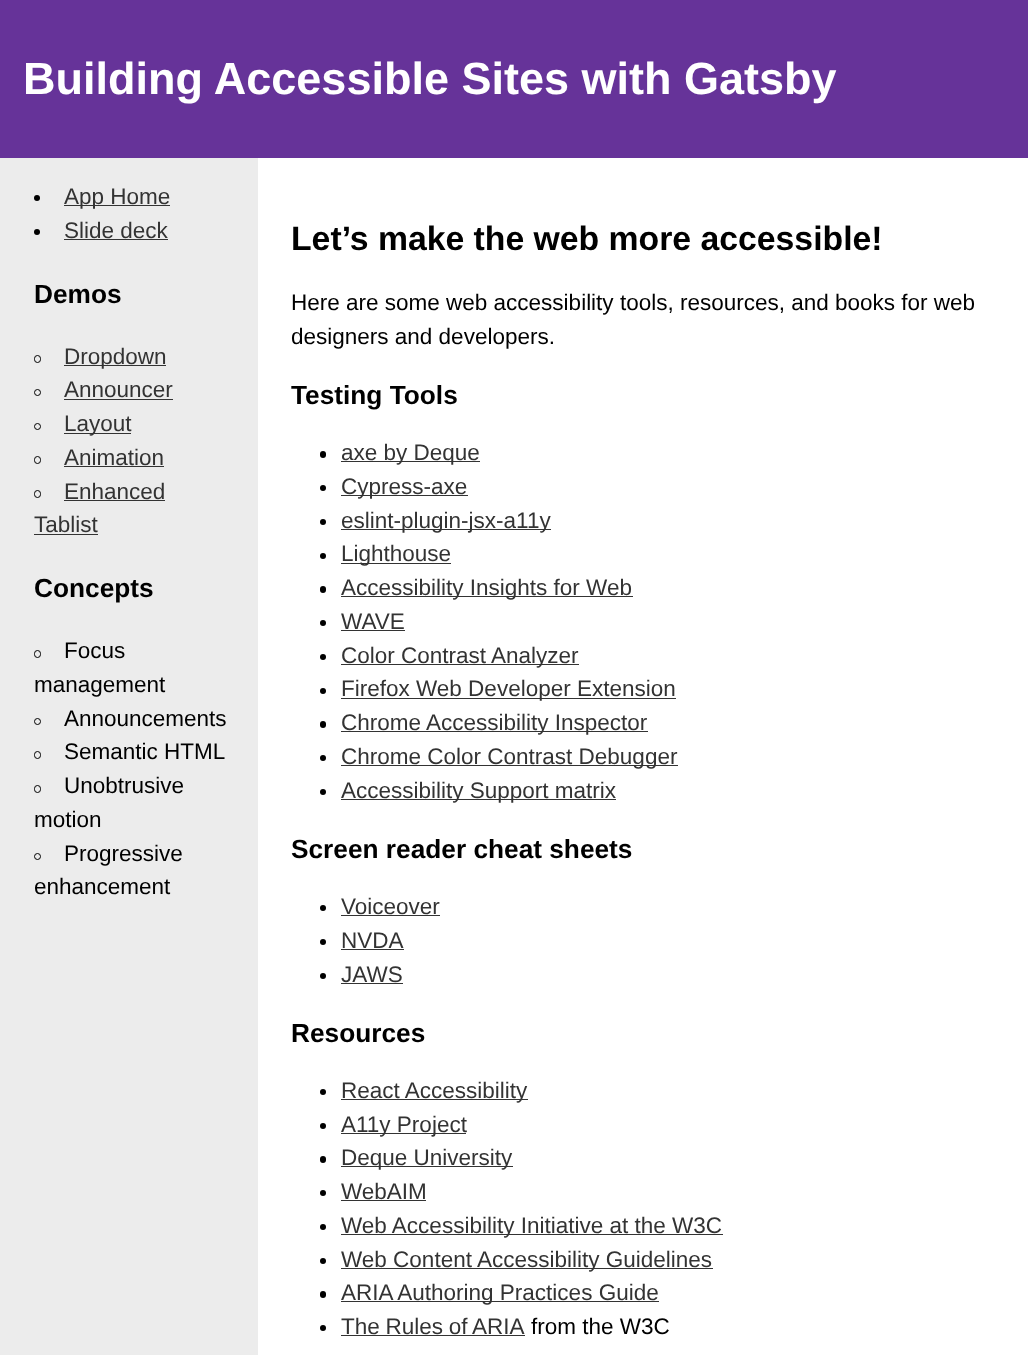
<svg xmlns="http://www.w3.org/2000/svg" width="1028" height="1355">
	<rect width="100%" height="100%" fill="#FFFFFF" />
	<rect x="0" y="0" width="1028" height="158" fill="#663399" />
	<text x="23" y="94" font-family="Liberation Sans" font-size="45" font-weight="700" fill="#FFFFFF">Building Accessible Sites with Gatsby</text>
	<rect x="0" y="158" width="258" height="1197" fill="#ECECEC" />
	<circle cx="37" cy="198" r="3" fill="#000000" />
	<rect x="64" y="205" width="106" height="1" fill="#333333" />
	<text x="64" y="204" font-family="Liberation Sans" font-size="22.5" fill="#333333">App Home</text>
	<circle cx="37" cy="232" r="3" fill="#000000" />
	<text x="64" y="238" font-family="Liberation Sans" font-size="22.5" fill="#333333">Slide deck</text>
	<rect x="64" y="239" width="104" height="1" fill="#333333" />
	<text x="34" y="303" font-family="Liberation Sans" font-size="26.25" font-weight="700" fill="#000000">Demos</text>
	<rect x="34.5" y="355.5" width="6" height="7" rx="3" fill="none" stroke="#000000" />
	<rect x="64" y="365" width="102" height="1" fill="#333333" />
	<text x="64" y="364" font-family="Liberation Sans" font-size="22.5" fill="#333333">Dropdown</text>
	<circle cx="37.5" cy="392.5" r="3" fill="none" stroke="#000000" />
	<text x="64" y="397" font-family="Liberation Sans" font-size="22.5" fill="#333333">Announcer</text>
	<rect x="64" y="399" width="109" height="1" fill="#333333" />
	<circle cx="37.5" cy="426.5" r="3" fill="none" stroke="#000000" />
	<rect x="64" y="433" width="67" height="1" fill="#333333" />
	<text x="64" y="431" font-family="Liberation Sans" font-size="22.5" fill="#333333">Layout</text>
	<rect x="34.5" y="456.5" width="6" height="7" rx="3" fill="none" stroke="#000000" />
	<text x="64" y="465" font-family="Liberation Sans" font-size="22.5" fill="#333333">Animation</text>
	<rect x="64" y="466" width="100" height="1" fill="#333333" />
	<rect x="34.5" y="490.5" width="6" height="7" rx="3" fill="none" stroke="#000000" />
	<text x="64" y="499" font-family="Liberation Sans" font-size="22.5" fill="#333333">Enhanced</text>
	<rect x="64" y="500" width="101" height="1" fill="#333333" />
	<text x="34" y="532" font-family="Liberation Sans" font-size="22.5" fill="#333333">Tablist</text>
	<rect x="34" y="534" width="64" height="1" fill="#333333" />
	<text x="34" y="597" font-family="Liberation Sans" font-size="26.25" font-weight="700" fill="#000000">Concepts</text>
	<rect x="34.5" y="650.5" width="6" height="7" rx="3" fill="none" stroke="#000000" />
	<g font-family="Liberation Sans" font-size="22.5" fill="#000000">
		<text x="64" y="658">Focus</text>
		<text x="34" y="692">management</text>
	</g>
	<circle cx="37.5" cy="721.5" r="3" fill="none" stroke="#000000" />
	<text x="64" y="726" font-family="Liberation Sans" font-size="22.5" fill="#000000">Announcements</text>
	<rect x="34.5" y="751.5" width="6" height="7" rx="3" fill="none" stroke="#000000" />
	<text x="64" y="759" font-family="Liberation Sans" font-size="22.5" fill="#000000">Semantic HTML</text>
	<rect x="34.5" y="785.5" width="6" height="7" rx="3" fill="none" stroke="#000000" />
	<g font-family="Liberation Sans" font-size="22.5" fill="#000000">
		<text x="64" y="793">Unobtrusive</text>
		<text x="34" y="827">motion</text>
	</g>
	<circle cx="37.5" cy="856.5" r="3" fill="none" stroke="#000000" />
	<g font-family="Liberation Sans" font-size="22.5" fill="#000000">
		<text x="64" y="861">Progressive</text>
		<text x="34" y="894">enhancement</text>
	</g>
	<text x="291" y="250" font-family="Liberation Sans" font-size="33.75" font-weight="700" fill="#000000">Let’s make the web more accessible!</text>
	<g font-family="Liberation Sans" font-size="22.5" fill="#000000">
		<text x="291" y="310">Here are some web accessibility tools, resources, and books for web</text>
		<text x="291" y="344">designers and developers.</text>
	</g>
	<text x="291" y="404" font-family="Liberation Sans" font-size="26.25" font-weight="700" fill="#000000">Testing Tools</text>
	<rect x="320" y="451" width="6" height="7" rx="3" fill="#000000" />
	<rect x="341" y="461" width="139" height="1" fill="#333333" />
	<text x="341" y="460" font-family="Liberation Sans" font-size="22.5" fill="#333333">axe by Deque</text>
	<circle cx="323" cy="488" r="3" fill="#000000" />
	<rect x="341" y="495" width="127" height="1" fill="#333333" />
	<text x="341" y="494" font-family="Liberation Sans" font-size="22.5" fill="#333333">Cypress-axe</text>
	<circle cx="323" cy="522" r="3" fill="#000000" />
	<rect x="341" y="529" width="210" height="1" fill="#333333" />
	<text x="341" y="528" font-family="Liberation Sans" font-size="22.5" fill="#333333">eslint-plugin-jsx-a11y</text>
	<circle cx="323" cy="556" r="3" fill="#000000" />
	<rect x="341" y="563" width="110" height="1" fill="#333333" />
	<text x="341" y="561" font-family="Liberation Sans" font-size="22.5" fill="#333333">Lighthouse</text>
	<rect x="320" y="586" width="6" height="7" rx="3" fill="#000000" />
	<rect x="341" y="596" width="292" height="1" fill="#333333" />
	<text x="341" y="595" font-family="Liberation Sans" font-size="22.5" fill="#333333">Accessibility Insights for Web</text>
	<circle cx="323" cy="623" r="3" fill="#000000" />
	<text x="341" y="629" font-family="Liberation Sans" font-size="22.5" fill="#333333">WAVE</text>
	<rect x="341" y="630" width="64" height="1" fill="#333333" />
	<circle cx="323" cy="657" r="3" fill="#000000" />
	<rect x="341" y="664" width="238" height="1" fill="#333333" />
	<text x="341" y="663" font-family="Liberation Sans" font-size="22.5" fill="#333333">Color Contrast Analyzer</text>
	<circle cx="323" cy="691" r="3" fill="#000000" />
	<rect x="341" y="698" width="335" height="1" fill="#333333" />
	<text x="341" y="696" font-family="Liberation Sans" font-size="22.5" fill="#333333">Firefox Web Developer Extension</text>
	<rect x="320" y="721" width="6" height="7" rx="3" fill="#000000" />
	<rect x="341" y="731" width="307" height="1" fill="#333333" />
	<text x="341" y="730" font-family="Liberation Sans" font-size="22.5" fill="#333333">Chrome Accessibility Inspector</text>
	<circle cx="323" cy="758" r="3" fill="#000000" />
	<rect x="341" y="765" width="337" height="1" fill="#333333" />
	<text x="341" y="764" font-family="Liberation Sans" font-size="22.5" fill="#333333">Chrome Color Contrast Debugger</text>
	<circle cx="323" cy="792" r="3" fill="#000000" />
	<rect x="341" y="799" width="275" height="1" fill="#333333" />
	<text x="341" y="798" font-family="Liberation Sans" font-size="22.5" fill="#333333">Accessibility Support matrix</text>
	<text x="291" y="858" font-family="Liberation Sans" font-size="26.25" font-weight="700" fill="#000000">Screen reader cheat sheets</text>
	<circle cx="323" cy="908" r="3" fill="#000000" />
	<text x="341" y="914" font-family="Liberation Sans" font-size="22.5" fill="#333333">Voiceover</text>
	<rect x="341" y="915" width="99" height="1" fill="#333333" />
	<circle cx="323" cy="942" r="3" fill="#000000" />
	<text x="341" y="948" font-family="Liberation Sans" font-size="22.5" fill="#333333">NVDA</text>
	<rect x="341" y="949" width="63" height="1" fill="#333333" />
	<circle cx="323" cy="976" r="3" fill="#000000" />
	<text x="341" y="982" font-family="Liberation Sans" font-size="22.5" fill="#333333">JAWS</text>
	<rect x="341" y="983" width="62" height="1" fill="#333333" />
	<text x="291" y="1042" font-family="Liberation Sans" font-size="26.25" font-weight="700" fill="#000000">Resources</text>
	<circle cx="323" cy="1092" r="3" fill="#000000" />
	<rect x="341" y="1099" width="187" height="1" fill="#333333" />
	<text x="341" y="1098" font-family="Liberation Sans" font-size="22.5" fill="#333333">React Accessibility</text>
	<circle cx="323" cy="1126" r="3" fill="#000000" />
	<rect x="341" y="1133" width="125" height="1" fill="#333333" />
	<text x="341" y="1132" font-family="Liberation Sans" font-size="22.5" fill="#333333">A11y Project</text>
	<rect x="320" y="1156" width="6" height="7" rx="3" fill="#000000" />
	<rect x="341" y="1166" width="172" height="1" fill="#333333" />
	<text x="341" y="1165" font-family="Liberation Sans" font-size="22.5" fill="#333333">Deque University</text>
	<circle cx="323" cy="1193" r="3" fill="#000000" />
	<text x="341" y="1199" font-family="Liberation Sans" font-size="22.5" fill="#333333">WebAIM</text>
	<rect x="341" y="1200" width="85" height="1" fill="#333333" />
	<circle cx="323" cy="1227" r="3" fill="#000000" />
	<rect x="341" y="1234" width="382" height="1" fill="#333333" />
	<text x="341" y="1233" font-family="Liberation Sans" font-size="22.5" fill="#333333">Web Accessibility Initiative at the W3C</text>
	<circle cx="323" cy="1261" r="3" fill="#000000" />
	<rect x="341" y="1268" width="372" height="1" fill="#333333" />
	<text x="341" y="1267" font-family="Liberation Sans" font-size="22.5" fill="#333333">Web Content Accessibility Guidelines</text>
	<rect x="320" y="1291" width="6" height="7" rx="3" fill="#000000" />
	<rect x="341" y="1301" width="318" height="1" fill="#333333" />
	<text x="341" y="1300" font-family="Liberation Sans" font-size="22.5" fill="#333333">ARIA Authoring Practices Guide</text>
	<circle cx="323" cy="1328" r="3" fill="#000000" />
	<text x="341" y="1334" word-spacing="-0.5" font-family="Liberation Sans" font-size="22.5" fill="#333333">The Rules of ARIA</text>
	<rect x="341" y="1335" width="184" height="1" fill="#333333" />
	<text x="531" y="1334" font-family="Liberation Sans" font-size="22.5" fill="#000000">from the W3C</text>
</svg>
